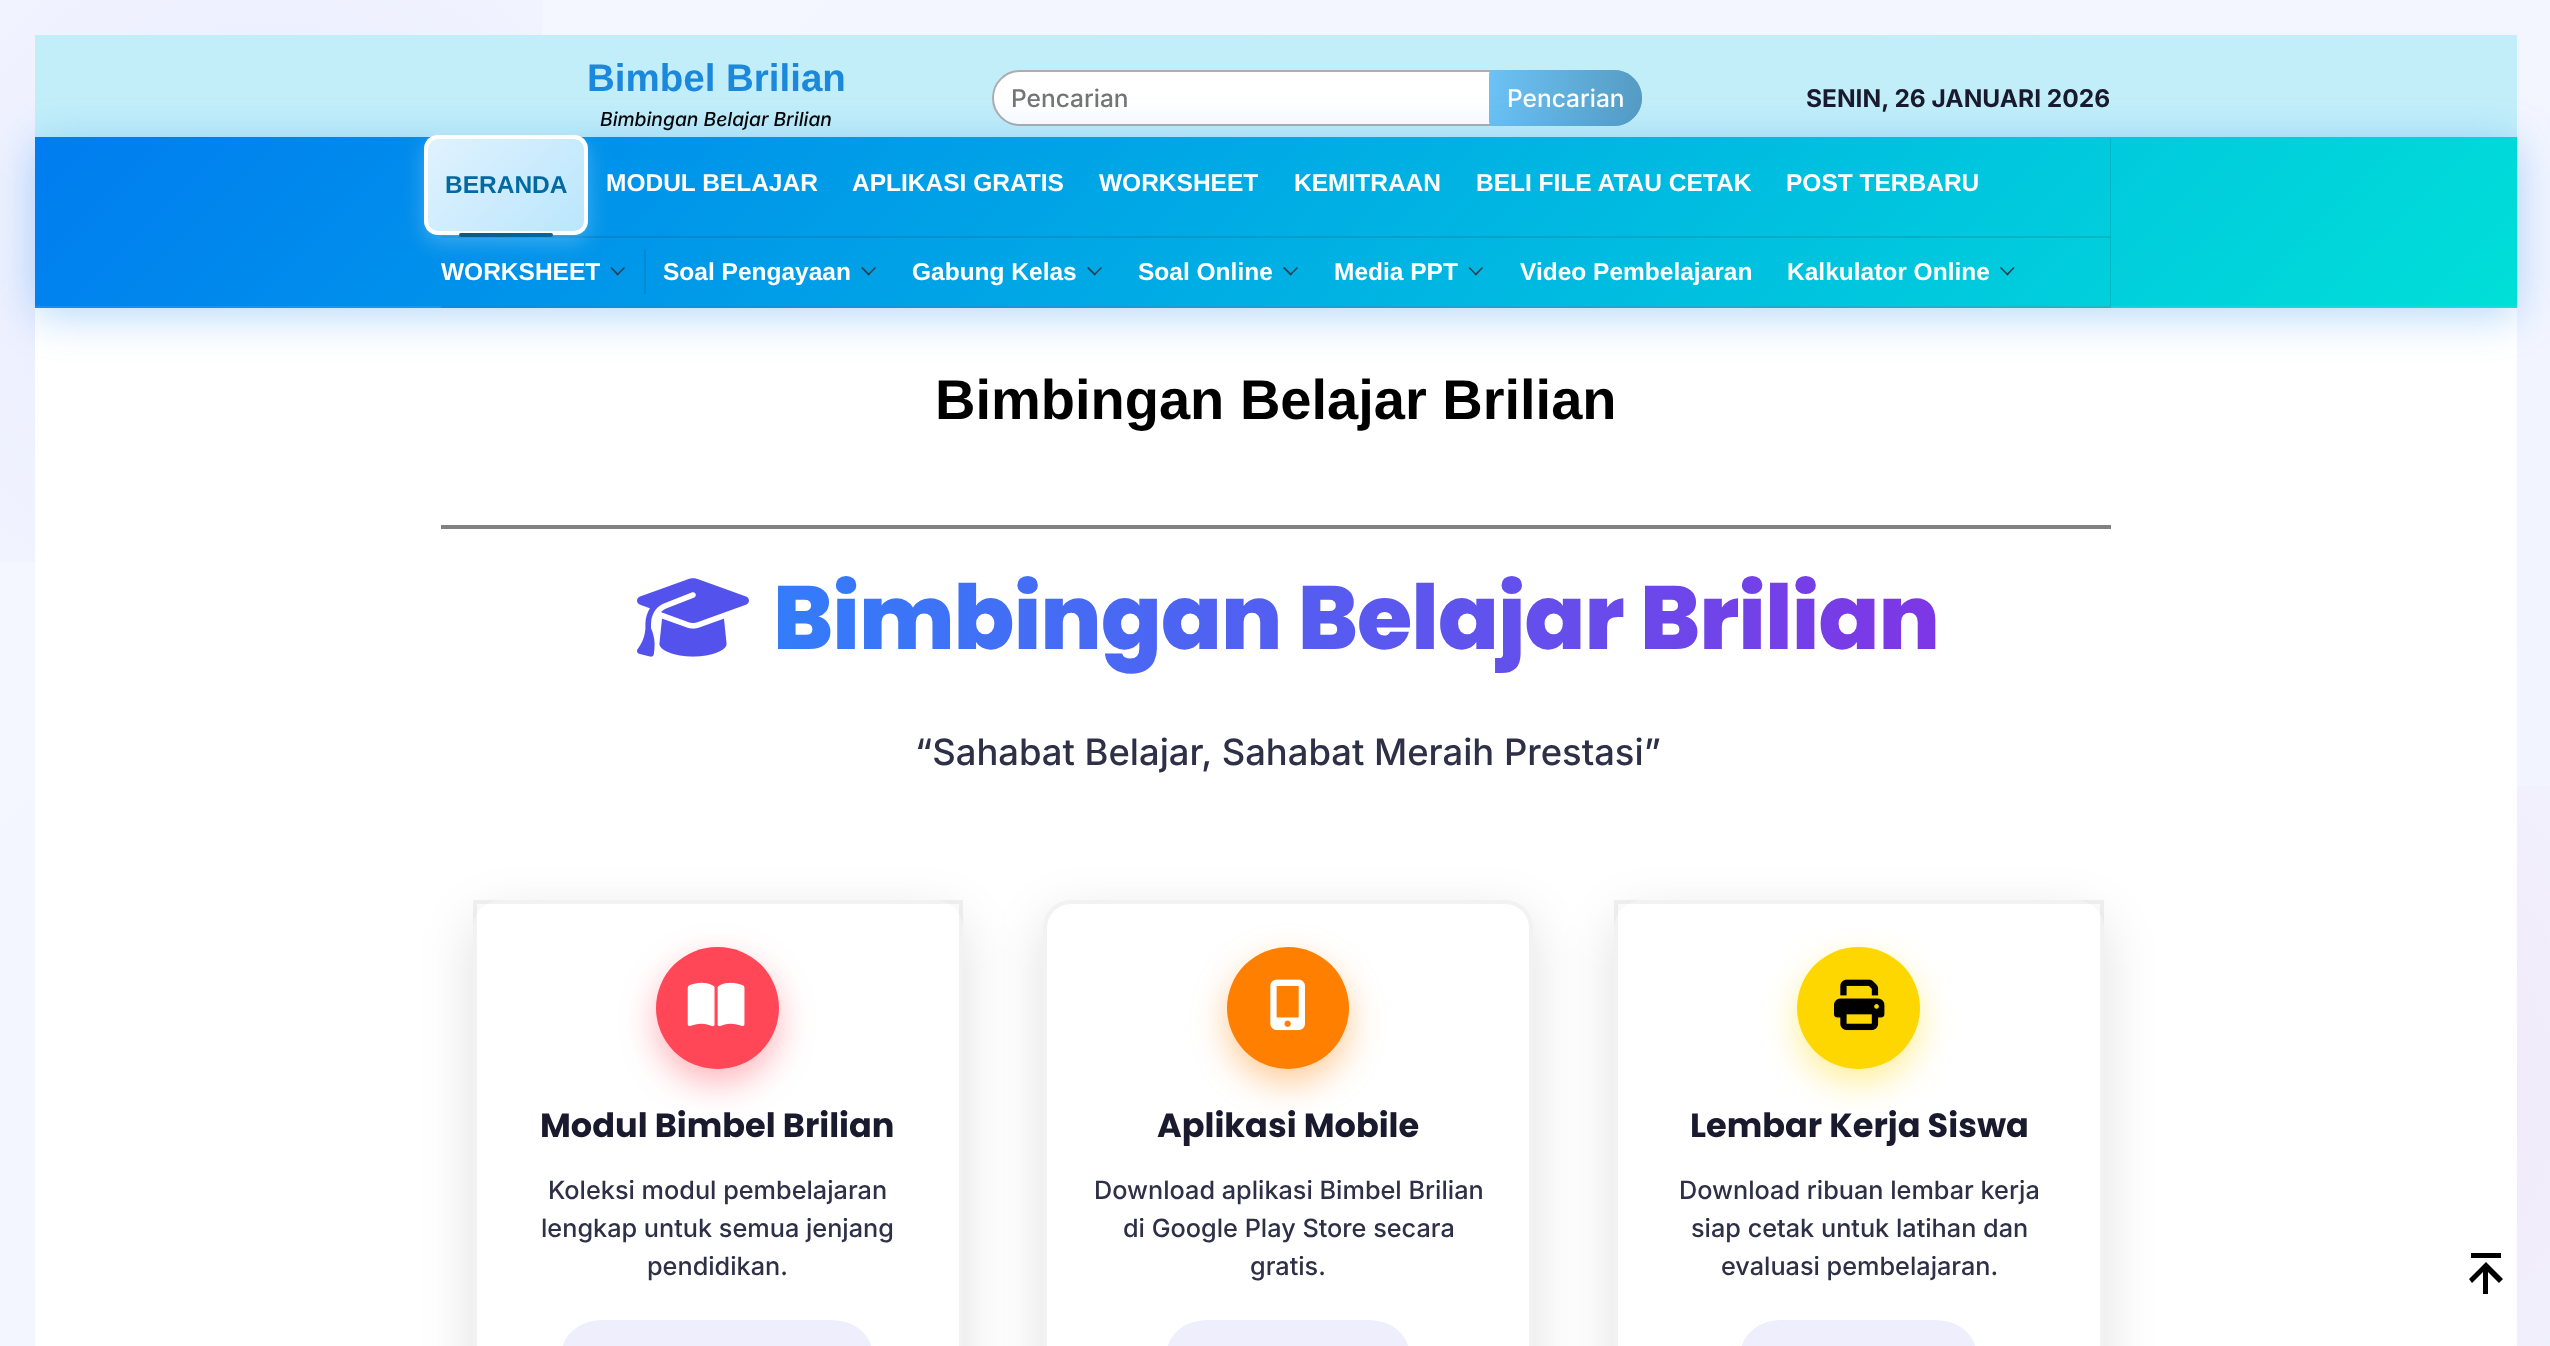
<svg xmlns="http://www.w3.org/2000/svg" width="2550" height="1346">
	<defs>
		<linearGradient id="g1" gradientUnits="userSpaceOnUse" x1="-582" y1="582" x2="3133" y2="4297"><stop offset="0" stop-color="#F5F7FF" /><stop offset="1" stop-color="#EDF2FF" /></linearGradient>
		<radialGradient id="g2" gradientUnits="userSpaceOnUse" cx="2296" cy="1078" r="2537"><stop offset="0" stop-color="#F72585" stop-opacity="0.08" /><stop offset="0.2" stop-color="#F72585" stop-opacity="0" /></radialGradient>
		<radialGradient id="g3" gradientUnits="userSpaceOnUse" cx="255" cy="270" r="2537"><stop offset="0" stop-color="#4361EE" stop-opacity="0.08" /><stop offset="0.2" stop-color="#4361EE" stop-opacity="0" /></radialGradient>
		<linearGradient id="g4" gradientUnits="userSpaceOnUse" x1="1489" y1="98" x2="1642" y2="98"><stop offset="0" stop-color="#000000" stop-opacity="0" /><stop offset="1" stop-color="#000000" stop-opacity="0.2" /></linearGradient>
		<linearGradient id="g5" gradientUnits="userSpaceOnUse" x1="613" y1="-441" x2="1939" y2="884"><stop offset="0" stop-color="#007CF0" /><stop offset="1" stop-color="#00DFD8" /></linearGradient>
		<linearGradient id="g6" gradientUnits="userSpaceOnUse" x1="613" y1="-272" x2="1939" y2="1054"><stop offset="0" stop-color="#007CF0" /><stop offset="1" stop-color="#00DFD8" /></linearGradient>
		<clipPath id="clip1"><rect x="424" y="135" width="164" height="100" rx="14" /></clipPath>
		<linearGradient id="g7" gradientUnits="userSpaceOnUse" x1="443" y1="122" x2="568" y2="247"><stop offset="0" stop-color="#E0F2FE" /><stop offset="1" stop-color="#BAE6FD" /></linearGradient>
		<linearGradient id="g8" gradientUnits="userSpaceOnUse" x1="453" y1="618" x2="2123" y2="618"><stop offset="0" stop-color="#1E90FF" /><stop offset="1" stop-color="#8A2BE2" /></linearGradient>
		<linearGradient id="g9" gradientUnits="userSpaceOnUse" x1="481" y1="210" x2="530" y2="259"><stop offset="0" stop-color="#075985" /><stop offset="1" stop-color="#0369A1" /></linearGradient>
	</defs>
	<rect width="100%" height="100%" fill="#FFFFFF" />
	<rect x="0" y="0" width="2550" height="1346" fill="url(#g1)" />
	<rect x="2517" y="786" width="33" height="560" fill="url(#g2)" />
	<rect x="0" y="0" width="542" height="562" fill="url(#g3)" />
	<rect x="35" y="35" width="2482" height="102" fill="#C2EEF9" />
	<text x="587" y="91" font-family="Liberation Sans" font-size="38.5" font-weight="700" fill="#1C88DB">Bimbel Brilian</text>
	<text x="600" y="126" font-family="Inter" font-size="19.25" font-weight="500" font-style="italic" fill="#000000">Bimbingan Belajar Brilian</text>
	<rect x="993" y="71" width="648" height="54" rx="27" fill="#FFFFFF" stroke="#ADADAD" stroke-width="2" />
	<text x="1011" y="107" font-family="Inter" font-size="24.5" font-weight="500" fill="#757575">Pencarian</text>
	<path d="M1493 70H1614C1629.5 70 1642 82.5 1642 98C1642 113.5 1629.5 126 1614 126H1493C1491 126 1489 124 1489 122V74C1489 72 1491 70 1493 70Z" fill="#6BC2F4" />
	<path d="M1493 70H1614C1629.5 70 1642 82.5 1642 98C1642 113.5 1629.5 126 1614 126H1493C1491 126 1489 124 1489 122V74C1489 72 1491 70 1493 70Z" fill="url(#g4)" />
	<text x="1507" y="107" font-family="Inter" font-size="24.5" font-weight="500" fill="#FFFFFF">Pencarian</text>
	<text x="1806" y="107" font-family="Inter" font-size="24.5" font-weight="700" fill="#1A1A2E">SENIN, 26 JANUARI 2026</text>
	<rect x="35" y="308" width="2482" height="1038" fill="#FFFFFF" />
	<rect x="35" y="144" width="2482" height="171" fill="#007CF0" fill-opacity="0.3" filter="blur(22px)" />
	<rect x="35" y="137" width="2482" height="169" fill="url(#g5)" />
	<rect x="35" y="306" width="2482" height="2" fill="url(#g6)" />
	<rect x="35" y="306" width="2482" height="2" fill="#FFFFFF" fill-opacity="0.1" />
	<path d="M441 236V238H2111V138H2110V236Z" fill="#000000" fill-opacity="0.1" />
	<path d="M441 306V308H2111V238H2110V306Z" fill="#000000" fill-opacity="0.1" />
	<rect x="424" y="142" width="164" height="100" rx="14" fill="#FFFFFF" fill-opacity="0.25" filter="blur(10.5px)" />
	<g clip-path="url(#clip1)">
		<rect x="427" y="138" width="158" height="93" fill="url(#g7)" />
	</g>
	<rect x="426" y="137" width="160" height="96" rx="12" fill="none" stroke="#FFFFFF" stroke-width="4" />
	<text x="445" y="193" font-family="Liberation Sans" font-size="24.5" font-weight="700" fill="#0369A1">BERANDA</text>
	<rect x="459" y="233" width="94" height="4" rx="2" fill="url(#g9)" />
	<g font-family="Liberation Sans" font-size="24.5" font-weight="700" fill="#FFFFFF">
		<text x="606" y="191">MODUL BELAJAR</text>
		<text x="852" y="191">APLIKASI GRATIS</text>
		<text x="1099" y="191">WORKSHEET</text>
		<text x="1294" y="191">KEMITRAAN</text>
		<text x="1476" y="191">BELI FILE ATAU CETAK</text>
		<text x="1786" y="191">POST TERBARU</text>
	</g>
	<rect x="644" y="249" width="2" height="45" fill="#0089D2" />
	<text x="441" y="280" font-family="Liberation Sans" font-size="24.5" font-weight="700" fill="#FFFFFF">WORKSHEET</text>
	<path d="M624 267L625 268L617.5 275.5L616.5 274.5Z" fill="#2C3E50" />
	<path d="M611.5 267L619 274.5L617.5 275.5L610.5 268Z" fill="#2C3E50" />
	<text x="663" y="280" font-family="Liberation Sans" font-size="24.5" font-weight="700" fill="#FFFFFF">Soal Pengayaan</text>
	<path d="M875 267L876 268L868.5 275.5L867.5 274.5Z" fill="#2C3E50" />
	<path d="M862.5 267L870 274.5L868.5 275.5L861 268Z" fill="#2C3E50" />
	<text x="912" y="280" font-family="Liberation Sans" font-size="24.5" font-weight="700" fill="#FFFFFF">Gabung Kelas</text>
	<path d="M1101 267L1102 268L1094.5 275.5L1093.5 274.5Z" fill="#2C3E50" />
	<path d="M1088.5 267L1096 274.5L1094.5 275.5L1087 268Z" fill="#2C3E50" />
	<text x="1138" y="280" font-family="Liberation Sans" font-size="24.5" font-weight="700" fill="#FFFFFF">Soal Online</text>
	<path d="M1297 267L1298 268L1290.5 275.5L1289.5 274.5Z" fill="#2C3E50" />
	<path d="M1284.5 267L1292 274.5L1290.5 275.5L1283 268Z" fill="#2C3E50" />
	<text x="1334" y="280" font-family="Liberation Sans" font-size="24.5" font-weight="700" fill="#FFFFFF">Media PPT</text>
	<path d="M1482 267L1483 268L1476 275.5L1474.5 274.5Z" fill="#2C3E50" />
	<path d="M1469.5 267L1477 274.5L1476 275.5L1468.5 268Z" fill="#2C3E50" />
	<g font-family="Liberation Sans" font-size="24.5" font-weight="700" fill="#FFFFFF">
		<text x="1520" y="280">Video Pembelajaran</text>
		<text x="1787" y="280">Kalkulator Online</text>
	</g>
	<path d="M2013.5 267L2014.5 268L2007.5 275.5L2006 274.5Z" fill="#2C3E50" />
	<path d="M2001 267L2008.5 274.5L2007.5 275.5L2000 268Z" fill="#2C3E50" />
	<text x="935" y="419" font-family="Liberation Sans" font-size="56" font-weight="700" fill="#000000">Bimbingan Belajar Brilian</text>
	<rect x="441" y="525" width="1670" height="4" fill="#808080" />
	<image x="637" y="578" width="112" height="79" href="assets/img1.png" />
	<text x="773" y="649" font-family="Poppins" font-size="89.6" font-weight="800" letter-spacing="-0.9" fill="url(#g8)">Bimbingan Belajar Brilian</text>
	<text x="915" y="765" font-family="Inter" font-size="36.4" font-weight="500" fill="#2D3047">“Sahabat Belajar, Sahabat Meraih Prestasi”</text>
	<rect x="473" y="917" width="490" height="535" rx="28" fill="#000000" fill-opacity="0.12" filter="blur(26px)" />
	<rect x="473" y="900" width="490" height="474" rx="28" fill="#FFFFFF" />
	<rect x="475" y="902" width="486" height="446" fill="none" stroke="#000000" stroke-opacity="0.05" stroke-width="4" />
	<rect x="656" y="961" width="123" height="122" rx="61" fill="#FF4757" fill-opacity="0.4" filter="blur(17.5px)" />
	<rect x="656" y="947" width="123" height="122" rx="61" fill="#FF4757" />
	<image x="687" y="982" width="58" height="45" href="assets/img2.png" />
	<text x="540" y="1137" font-family="Poppins" font-size="33.6" font-weight="700" fill="#1A1A2E">Modul Bimbel Brilian</text>
	<g font-family="Inter" font-size="25.25" font-weight="500" fill="#2D3047">
		<text x="548" y="1199">Koleksi modul pembelajaran</text>
		<text x="541" y="1237">lengkap untuk semua jenjang</text>
		<text x="647" y="1275">pendidikan.</text>
	</g>
	<rect x="562" y="1320" width="310" height="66" rx="40" fill="#EEEEFD" />
	<rect x="1043" y="917" width="490" height="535" rx="28" fill="#000000" fill-opacity="0.12" filter="blur(26px)" />
	<rect x="1045" y="902" width="486" height="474" rx="26" fill="#FFFFFF" stroke="#F2F2F2" stroke-width="4" />
	<rect x="1227" y="961" width="122" height="122" rx="61" fill="#FF7F00" fill-opacity="0.4" filter="blur(17.5px)" />
	<circle cx="1288" cy="1008" r="61" fill="#FF7F00" />
	<image x="1270" y="979" width="35" height="52" href="assets/img3.png" />
	<text x="1157" y="1137" font-family="Poppins" font-size="33.6" font-weight="700" fill="#1A1A2E">Aplikasi Mobile</text>
	<g font-family="Inter" font-size="25.25" font-weight="500" fill="#2D3047">
		<text x="1094" y="1199">Download aplikasi Bimbel Brilian</text>
		<text x="1123" y="1237">di Google Play Store secara</text>
		<text x="1250" y="1275">gratis.</text>
	</g>
	<rect x="1167" y="1320" width="242" height="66" rx="40" fill="#EEEEFD" />
	<rect x="1614" y="917" width="490" height="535" rx="28" fill="#000000" fill-opacity="0.12" filter="blur(26px)" />
	<rect x="1614" y="900" width="490" height="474" rx="28" fill="#FFFFFF" />
	<rect x="1616" y="902" width="486" height="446" fill="none" stroke="#000000" stroke-opacity="0.05" stroke-width="4" />
	<rect x="1797" y="961" width="123" height="122" rx="61" fill="#FFD700" fill-opacity="0.4" filter="blur(17.5px)" />
	<rect x="1797" y="947" width="123" height="122" rx="61" fill="#FFD700" />
	<image x="1834" y="979" width="51" height="52" href="assets/img4.png" />
	<text x="1690" y="1137" font-family="Poppins" font-size="33.6" font-weight="700" fill="#1A1A2E">Lembar Kerja Siswa</text>
	<g font-family="Inter" font-size="25.25" font-weight="500" fill="#2D3047">
		<text x="1679" y="1199">Download ribuan lembar kerja</text>
		<text x="1691" y="1237">siap cetak untuk latihan dan</text>
		<text x="1721" y="1275">evaluasi pembelajaran.</text>
	</g>
	<rect x="1741" y="1320" width="235" height="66" rx="40" fill="#EEEEFD" />
	<path d="M2471 1253H2501V1258H2471ZM2472 1283L2483 1272V1294H2488V1272L2499 1283L2503 1279L2486 1262L2469 1279Z" fill="#000000" />
</svg>
